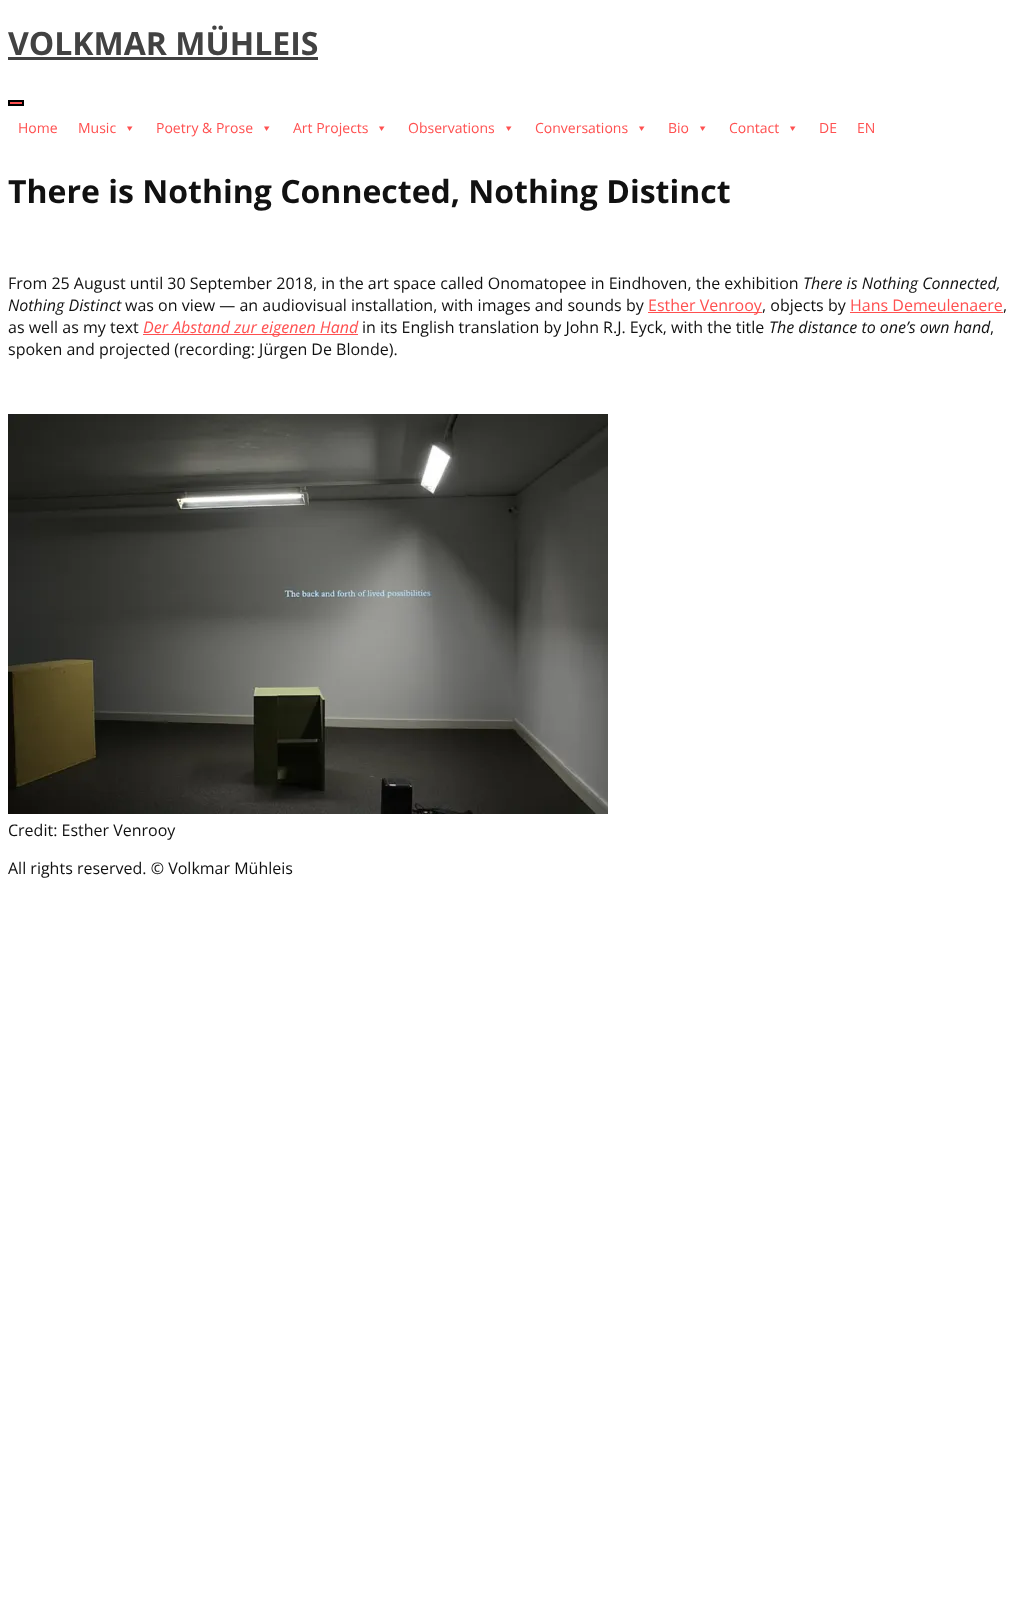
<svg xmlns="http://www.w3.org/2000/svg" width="1023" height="1604">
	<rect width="100%" height="100%" fill="#FFFFFF" />
	<text x="8" y="55" font-family="Open Sans" font-size="32" font-weight="700" fill="#424242">VOLKMAR MÜHLEIS</text>
	<rect x="8" y="57" width="310" height="3" fill="#424242" />
	<rect x="9" y="101" width="14" height="4" fill="#FF5050" stroke="#000000" stroke-width="2" />
	<g font-family="Open Sans" font-size="14" fill="#FF5050">
		<text x="18" y="133">Home</text>
		<text x="78" y="133">Music</text>
	</g>
	<path d="M132.5 126.5L129.5 131L127 126.5Z" fill="#FF5050" />
	<text x="156" y="133" font-family="Open Sans" font-size="14" fill="#FF5050">Poetry &amp; Prose</text>
	<path d="M269.5 126.5L266.5 131L264 126.5Z" fill="#FF5050" />
	<text x="293" y="133" font-family="Open Sans" font-size="14" fill="#FF5050">Art Projects</text>
	<path d="M384.5 126.5L381.5 131L379 126.5Z" fill="#FF5050" />
	<text x="408" y="133" font-family="Open Sans" font-size="14" fill="#FF5050">Observations</text>
	<path d="M511.5 126.5L508.5 131L506 126.5Z" fill="#FF5050" />
	<text x="535" y="133" font-family="Open Sans" font-size="14" fill="#FF5050">Conversations</text>
	<path d="M644.5 126.5L641.5 131L639 126.5Z" fill="#FF5050" />
	<text x="668" y="133" font-family="Open Sans" font-size="14" fill="#FF5050">Bio</text>
	<path d="M705.5 126.5L702.5 131L700 126.5Z" fill="#FF5050" />
	<text x="729" y="133" font-family="Open Sans" font-size="14" fill="#FF5050">Contact</text>
	<path d="M795.5 126.5L792.5 131L790 126.5Z" fill="#FF5050" />
	<g font-family="Open Sans" font-size="14" fill="#FF5050">
		<text x="819" y="133">DE</text>
		<text x="857" y="133">EN</text>
	</g>
	<text x="8" y="203" font-family="Open Sans" font-size="32" font-weight="700" fill="#111111">There is Nothing Connected, Nothing Distinct</text>
	<text x="8" y="289" font-family="Open Sans" font-size="16" fill="#111111">From 25 August until 30 September 2018, in the art space called Onomatopee in Eindhoven, the exhibition</text>
	<g font-family="Open Sans" font-size="16" font-style="italic" fill="#111111">
		<text x="803" y="289">There is Nothing Connected,</text>
		<text x="8" y="311">Nothing Distinct</text>
	</g>
	<text x="125" y="311" font-family="Open Sans" font-size="16" fill="#111111">was on view — an audiovisual installation, with images and sounds by</text>
	<rect x="648" y="312" width="114" height="1" fill="#FF5050" />
	<text x="648" y="311" font-family="Open Sans" font-size="16" fill="#FF5050">Esther Venrooy</text>
	<text x="762" y="311" font-family="Open Sans" font-size="16" fill="#111111">, objects by</text>
	<text x="850" y="311" font-family="Open Sans" font-size="16" fill="#FF5050">Hans Demeulenaere</text>
	<rect x="850" y="312" width="153" height="1" fill="#FF5050" />
	<g font-family="Open Sans" font-size="16" fill="#111111">
		<text x="1003" y="311">,</text>
		<text x="8" y="333">as well as my text</text>
	</g>
	<rect x="143" y="334" width="215" height="1" fill="#FF5050" />
	<text x="143" y="333" font-family="Open Sans" font-size="16" font-style="italic" fill="#FF5050">Der Abstand zur eigenen Hand</text>
	<text x="362" y="333" font-family="Open Sans" font-size="16" fill="#111111">in its English translation by John R.J. Eyck, with the title</text>
	<text x="769" y="333" font-family="Open Sans" font-size="16" font-style="italic" fill="#111111">The distance to one’s own hand</text>
	<g font-family="Open Sans" font-size="16" fill="#111111">
		<text x="990" y="333">,</text>
		<text x="8" y="355">spoken and projected (recording: Jürgen De Blonde).</text>
	</g>
	<image x="8" y="414" width="600" height="400" href="assets/img1.png" />
	<g font-family="Open Sans" font-size="16" fill="#111111">
		<text x="8" y="836">Credit: Esther Venrooy</text>
		<text x="8" y="874">All rights reserved. © Volkmar Mühleis</text>
	</g>
</svg>
